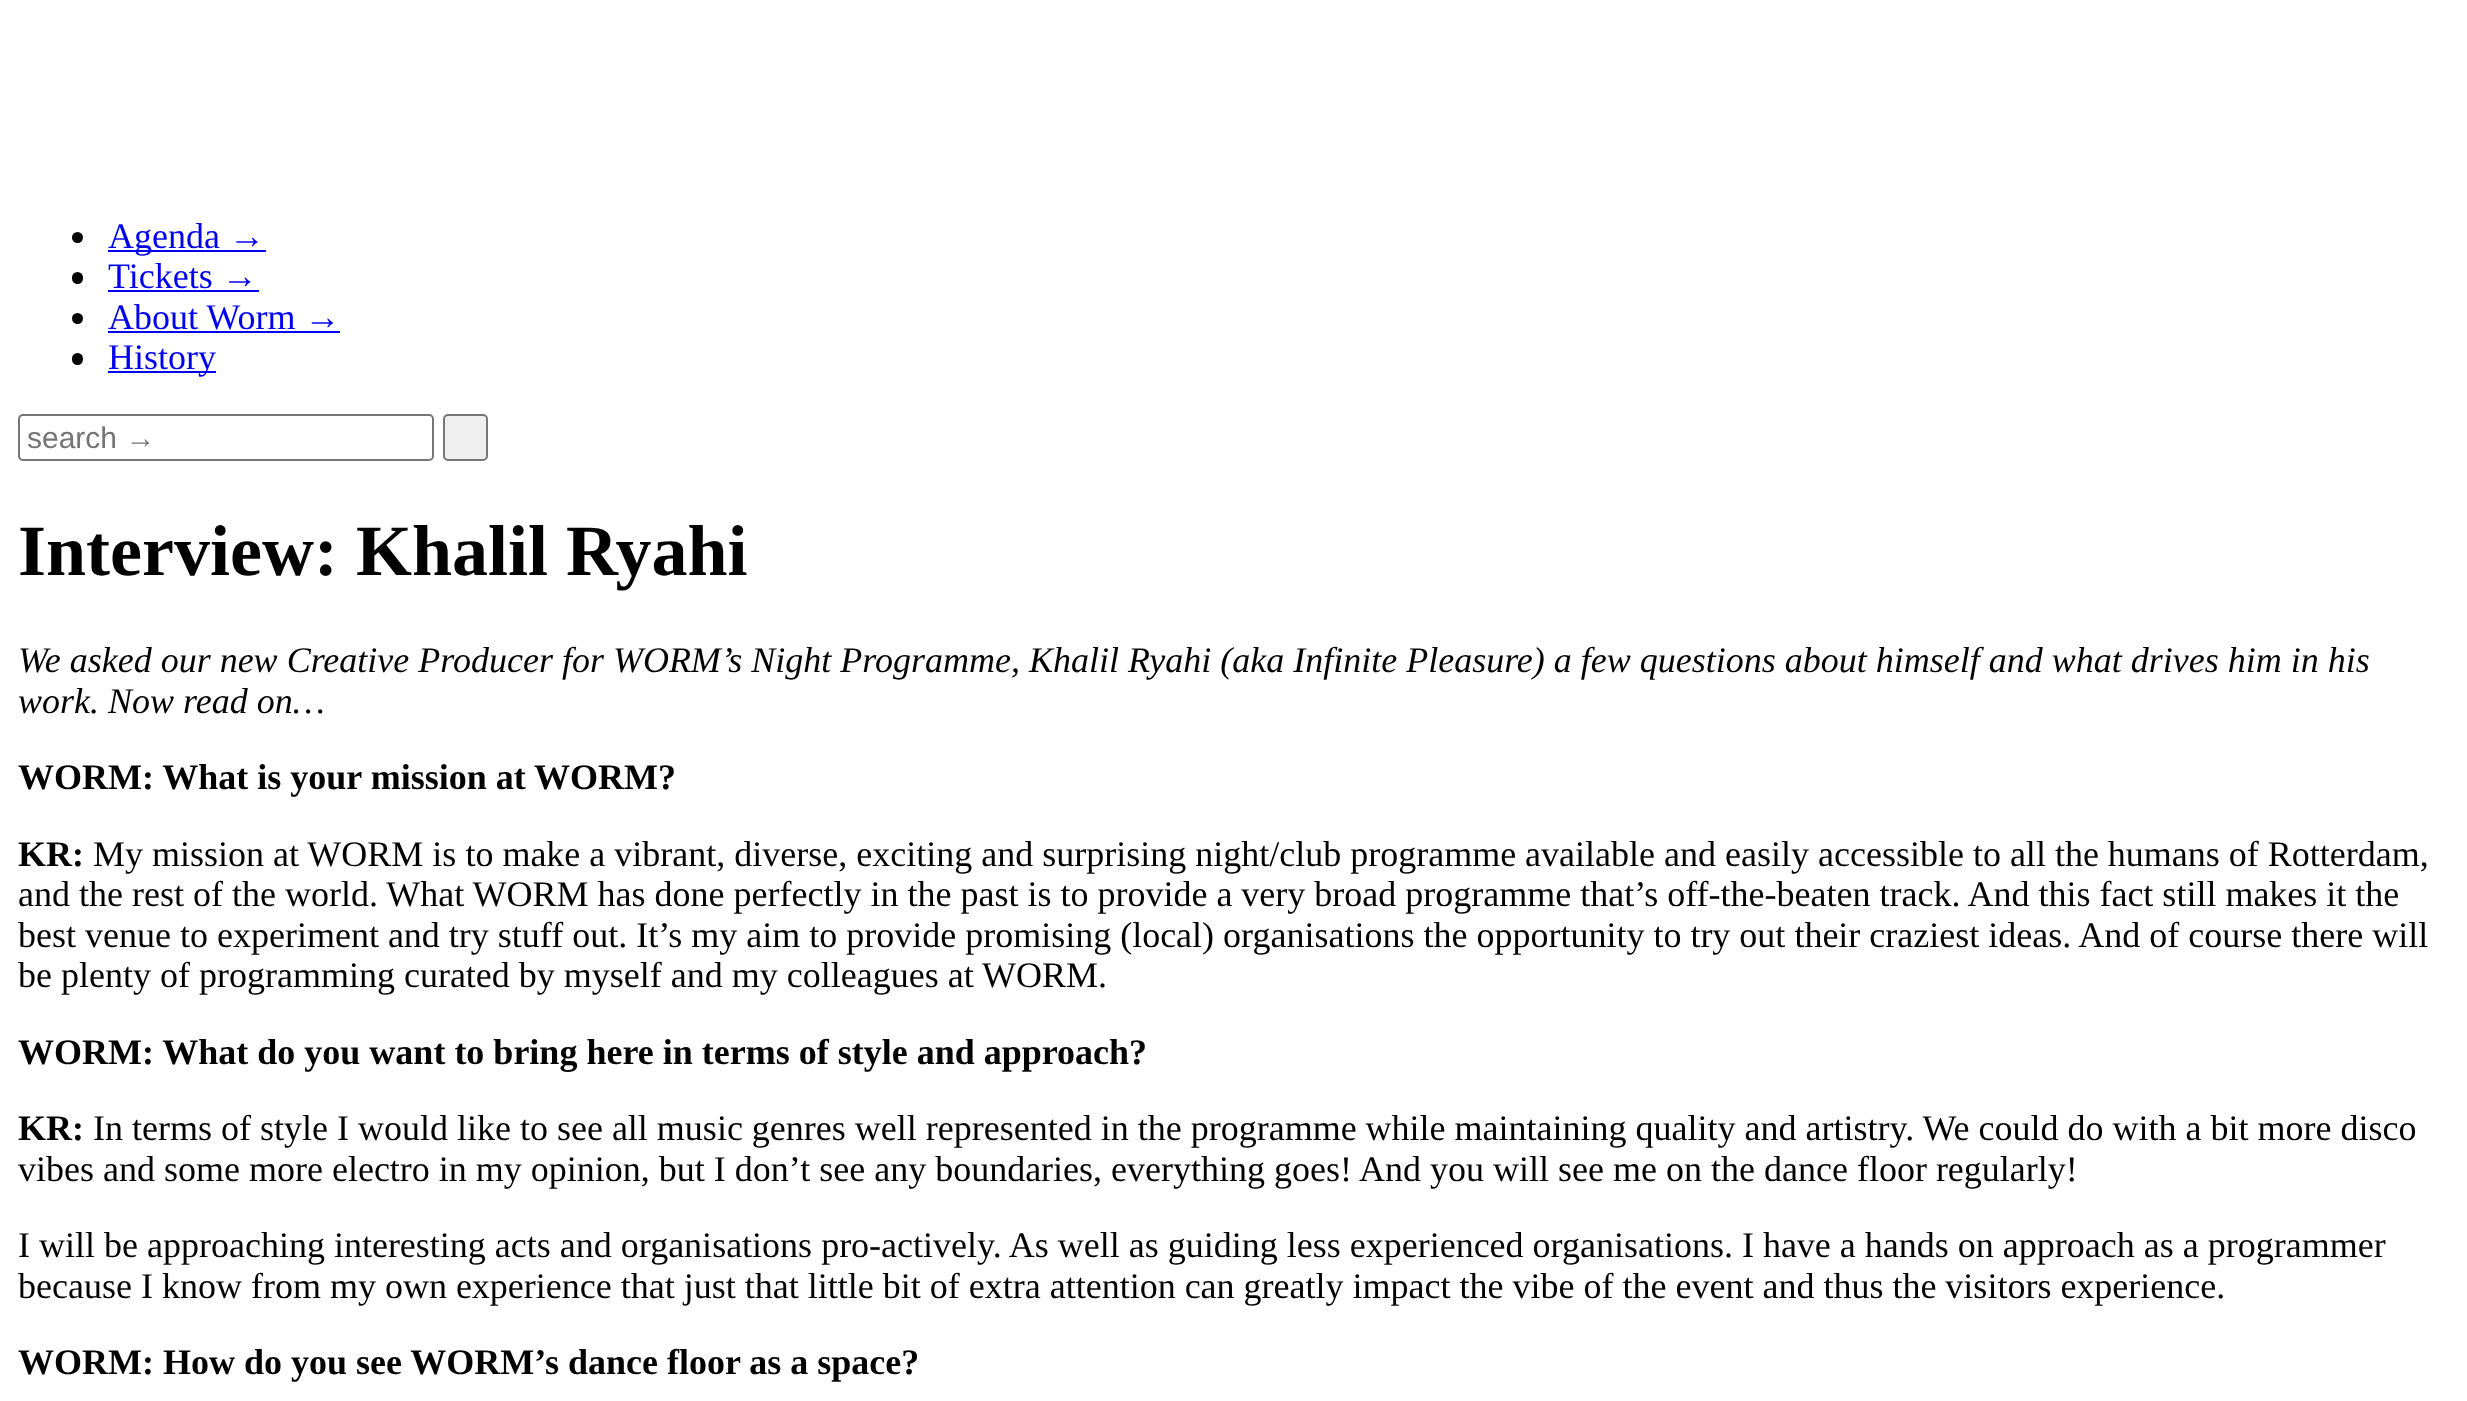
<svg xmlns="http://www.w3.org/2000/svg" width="2467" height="1401">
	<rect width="100%" height="100%" fill="#FFFFFF" />
	<circle cx="77.5" cy="237.5" r="5.5" fill="#000000" />
	<rect x="108" y="250" width="158" height="2" fill="#0000EE" />
	<text x="108" y="248" font-family="Liberation Serif" font-size="36" fill="#0000EE">Agenda →</text>
	<rect x="72" y="272" width="11" height="12" rx="5.5" fill="#000000" />
	<text x="108" y="288" font-family="Liberation Serif" font-size="36" fill="#0000EE">Tickets →</text>
	<rect x="108" y="290" width="151" height="2" fill="#0000EE" />
	<circle cx="77.5" cy="318.5" r="5.5" fill="#000000" />
	<text x="108" y="329" font-family="Liberation Serif" font-size="36" fill="#0000EE">About Worm →</text>
	<rect x="108" y="331" width="232" height="2" fill="#0000EE" />
	<rect x="72" y="353" width="11" height="12" rx="5.5" fill="#000000" />
	<rect x="108" y="371" width="108" height="2" fill="#0000EE" />
	<text x="108" y="369" font-family="Liberation Serif" font-size="36" fill="#0000EE">History</text>
	<rect x="19" y="415" width="414" height="45" rx="4" fill="none" stroke="#767676" stroke-width="2" />
	<text x="27" y="448" font-family="Liberation Sans" font-size="30" fill="#757575">search →</text>
	<rect x="444" y="415" width="43" height="45" rx="4" fill="#EFEFEF" stroke="#767676" stroke-width="2" />
	<text x="18" y="575" font-family="Liberation Serif" font-size="72" font-weight="700" fill="#000000">Interview: Khalil Ryahi</text>
	<g font-family="Liberation Serif" font-size="36" font-style="italic" fill="#000000">
		<text x="18" y="672">We asked our new Creative Producer for WORM’s Night Programme, Khalil Ryahi (aka Infinite Pleasure) a few questions about himself and what drives him in his</text>
		<text x="18" y="713">work. Now read on…</text>
	</g>
	<g font-family="Liberation Serif" font-size="36" font-weight="700" fill="#000000">
		<text x="18" y="789">WORM: What is your mission at WORM?</text>
		<text x="18" y="866">KR:</text>
	</g>
	<g font-family="Liberation Serif" font-size="36" fill="#000000">
		<text x="93" y="866">My mission at WORM is to make a vibrant, diverse, exciting and surprising night/club programme available and easily accessible to all the humans of Rotterdam,</text>
		<text x="18" y="906">and the rest of the world. What WORM has done perfectly in the past is to provide a very broad programme that’s off-the-beaten track. And this fact still makes it the</text>
		<text x="18" y="947">best venue to experiment and try stuff out. It’s my aim to provide promising (local) organisations the opportunity to try out their craziest ideas. And of course there will</text>
		<text x="18" y="987">be plenty of programming curated by myself and my colleagues at WORM.</text>
	</g>
	<g font-family="Liberation Serif" font-size="36" font-weight="700" fill="#000000">
		<text x="18" y="1064">WORM: What do you want to bring here in terms of style and approach?</text>
		<text x="18" y="1140">KR:</text>
	</g>
	<g font-family="Liberation Serif" font-size="36" fill="#000000">
		<text x="93" y="1140">In terms of style I would like to see all music genres well represented in the programme while maintaining quality and artistry. We could do with a bit more disco</text>
		<text x="18" y="1181">vibes and some more electro in my opinion, but I don’t see any boundaries, everything goes! And you will see me on the dance floor regularly!</text>
		<text x="18" y="1257">I will be approaching interesting acts and organisations pro-actively. As well as guiding less experienced organisations. I have a hands on approach as a programmer</text>
		<text x="18" y="1298">because I know from my own experience that just that little bit of extra attention can greatly impact the vibe of the event and thus the visitors experience.</text>
	</g>
	<text x="18" y="1374" font-family="Liberation Serif" font-size="36" font-weight="700" fill="#000000">WORM: How do you see WORM’s dance floor as a space?</text>
</svg>
